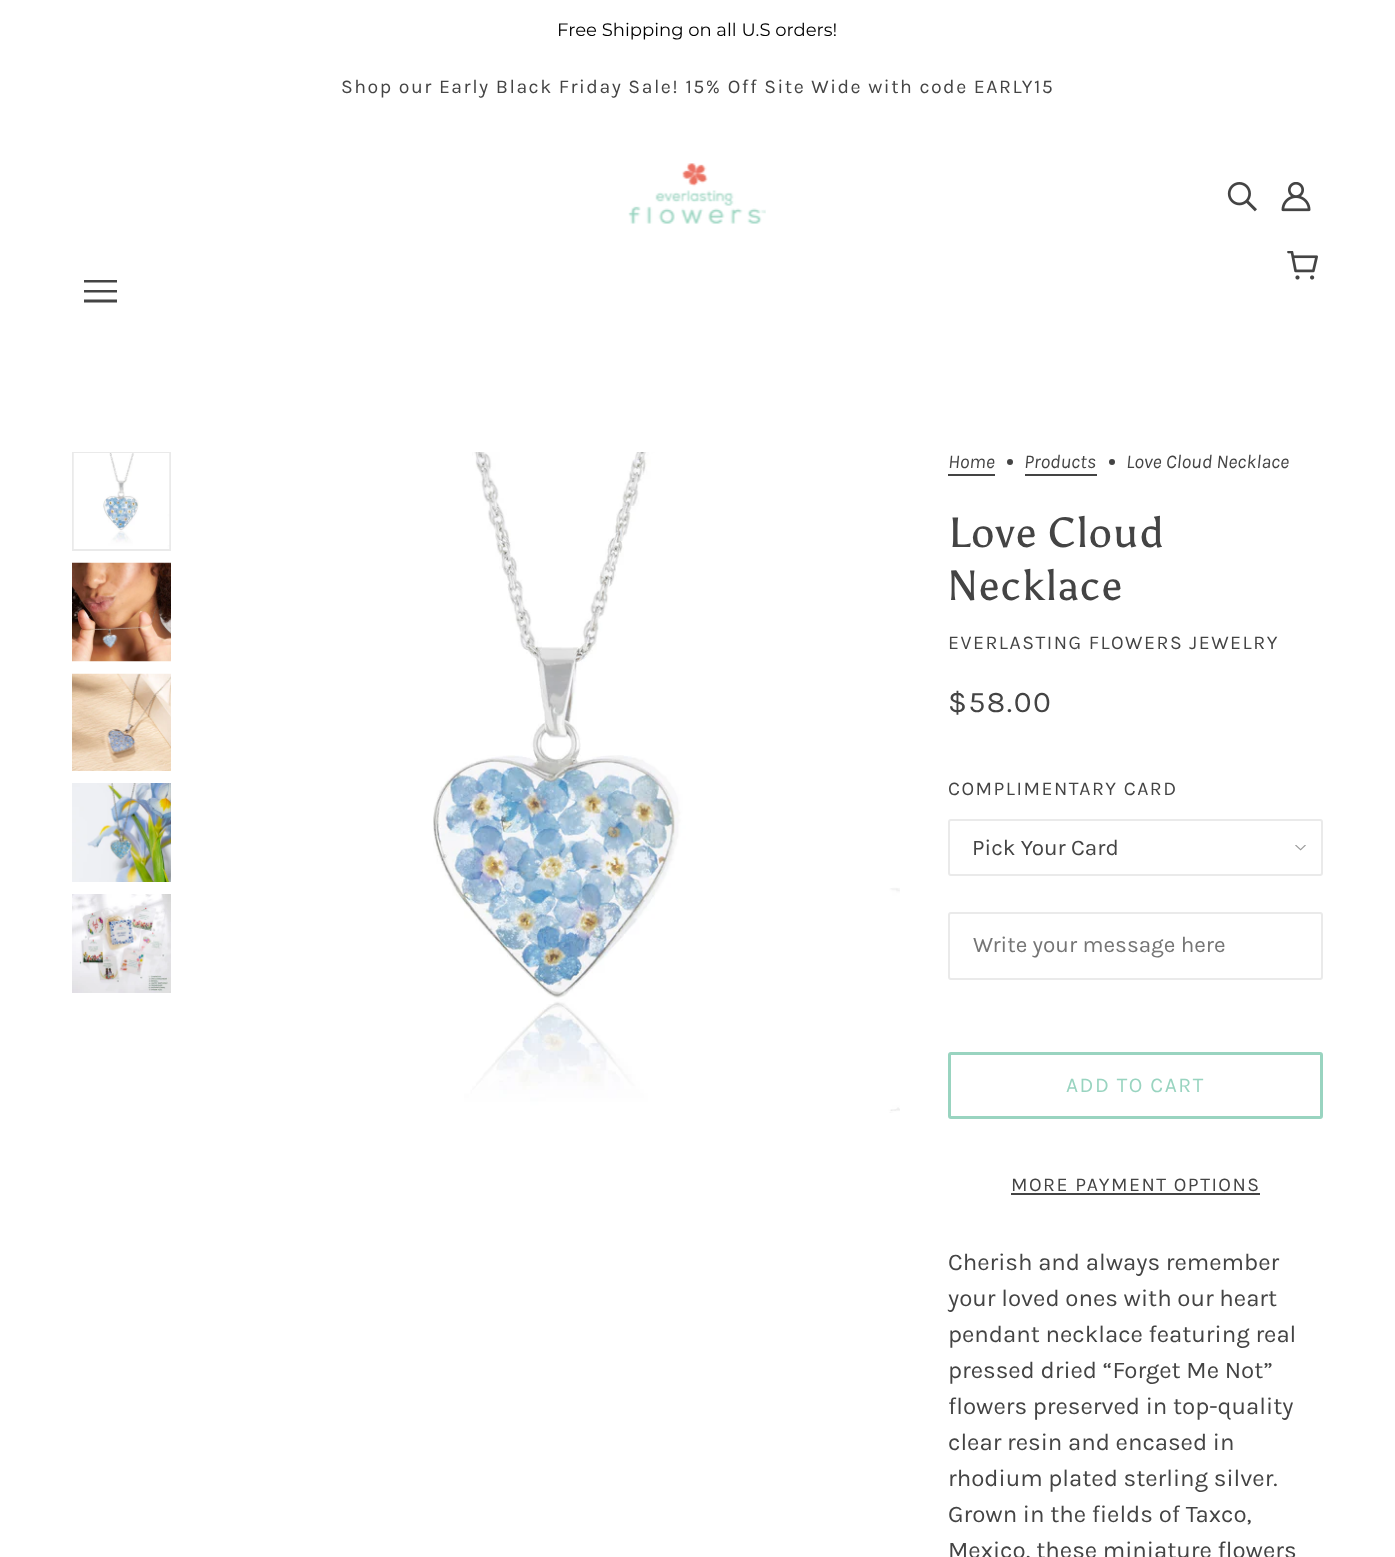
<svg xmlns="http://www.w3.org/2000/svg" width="1395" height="1557">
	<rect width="100%" height="100%" fill="#FFFFFF" />
	<text x="557" y="36" font-family="Montserrat" font-size="18" fill="#000000">Free Shipping on all U.S orders!</text>
	<text x="341" y="93" font-family="Karla" font-size="19.5" letter-spacing="1.5" fill="#444444">Shop our Early Black Friday Sale! 15% Off Site Wide with code EARLY15</text>
	<image x="628" y="163" width="138" height="61" href="assets/img1.png" />
	<image x="1227" y="182" width="30" height="30" href="assets/img2.png" />
	<image x="1281" y="182" width="30" height="30" href="assets/img3.png" />
	<image x="1287" y="251" width="31" height="29" href="assets/img4.png" />
	<path d="M84 282.5V280H117V282.5ZM84 292.5V290H117V292.5ZM84 302.5V299.5H117V302.5Z" fill="#444444" />
	<rect x="73" y="453" width="97" height="97" fill="none" stroke="#EAEAEA" stroke-width="2" />
	<image x="73" y="453" width="97" height="96" href="assets/img5.png" />
	<image x="72" y="562" width="99" height="100" href="assets/img6.png" />
	<image x="72" y="673" width="99" height="98" href="assets/img7.png" />
	<image x="72" y="783" width="99" height="99" href="assets/img8.png" />
	<image x="72" y="894" width="99" height="99" href="assets/img9.png" />
	<image x="433" y="452" width="467" height="661" href="assets/img10.png" />
	<text x="948" y="468" font-family="Karla" font-size="19.5" font-style="italic" fill="#444444">Home</text>
	<rect x="948" y="474" width="47" height="2" fill="#444444" />
	<circle cx="1010" cy="462" r="3" fill="#444444" />
	<text x="1024" y="468" font-family="Karla" font-size="19.5" font-style="italic" fill="#444444">Products</text>
	<rect x="1025" y="474" width="72" height="2" fill="#444444" />
	<circle cx="1112" cy="462" r="3" fill="#444444" />
	<text x="1126" y="468" font-family="Karla" font-size="19.5" font-style="italic" fill="#444444">Love Cloud Necklace</text>
	<g font-family="Asul" font-size="42" letter-spacing="1" fill="#444444">
		<text x="948" y="547">Love Cloud</text>
		<text x="948" y="600">Necklace</text>
	</g>
	<text x="948" y="649" font-family="Karla" font-size="19.5" letter-spacing="1.5" fill="#444444">EVERLASTING FLOWERS JEWELRY</text>
	<text x="948" y="712" font-family="Karla" font-size="30" letter-spacing="1.5" fill="#444444">$58.00</text>
	<text x="948" y="795" font-family="Karla" font-size="19.5" letter-spacing="1.5" fill="#444444">COMPLIMENTARY CARD</text>
	<image x="1295" y="845" width="11" height="6" href="assets/img11.png" />
	<rect x="949" y="820" width="373" height="55" rx="2" fill="none" stroke="#EAEAEA" stroke-width="2" />
	<text x="972" y="855" font-family="Karla" font-size="22.5" fill="#444444">Pick Your Card</text>
	<rect x="949" y="913" width="373" height="66" rx="2" fill="none" stroke="#EAEAEA" stroke-width="2" />
	<text x="973" y="952" font-family="Karla" font-size="22.5" fill="#757575">Write your message here</text>
	<rect x="949.5" y="1053.5" width="372" height="64" rx="1.5" fill="none" stroke="#99D4C0" stroke-width="3" />
	<text x="1066" y="1092" font-family="Karla" font-size="21" letter-spacing="1.5" fill="#99D4C0">ADD TO CART</text>
	<text x="1011" y="1191" font-family="Karla" font-size="19.5" letter-spacing="1.5" fill="#444444">MORE PAYMENT OPTIONS</text>
	<rect x="1011" y="1193" width="249" height="2" fill="#444444" />
	<g font-family="Karla" font-size="24" fill="#444444">
		<text x="948" y="1270">Cherish and always remember</text>
		<text x="948" y="1306">your loved ones with our heart</text>
		<text x="948" y="1342">pendant necklace featuring real</text>
		<text x="948" y="1378">pressed dried “Forget Me Not”</text>
		<text x="948" y="1414">flowers preserved in top-quality</text>
		<text x="948" y="1450">clear resin and encased in</text>
		<text x="948" y="1486">rhodium plated sterling silver.</text>
		<text x="948" y="1522">Grown in the fields of Taxco,</text>
		<text x="948" y="1558">Mexico, these miniature flowers</text>
	</g>
</svg>
